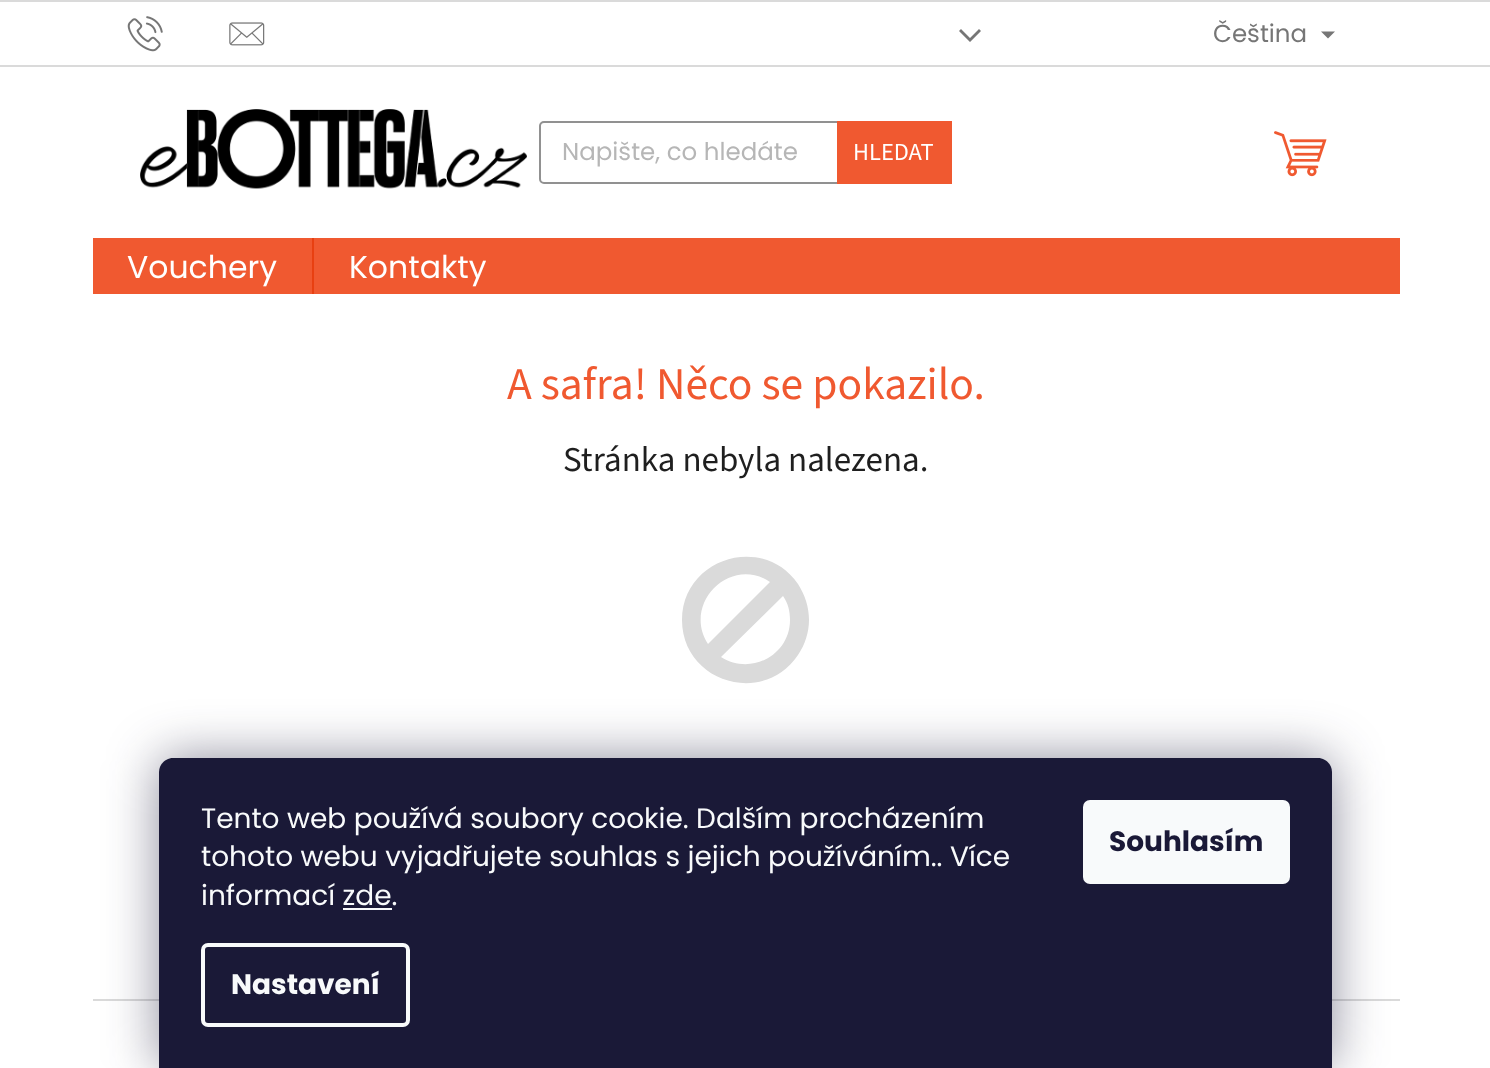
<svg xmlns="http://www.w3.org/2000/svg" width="1490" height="1068">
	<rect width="100%" height="100%" fill="#FFFFFF" />
	<rect x="0" y="0" width="1490" height="2" fill="#DADADA" />
	<rect x="0" y="65" width="1490" height="2" fill="#DADADA" />
	<image x="127" y="16" width="36" height="36" href="assets/img1.png" />
	<image x="229" y="22" width="36" height="24" href="assets/img2.png" />
	<path d="M959 31L961 29L970 38L979 29L981 31L970 42Z" fill="#767676" />
	<text x="1213" y="42" font-family="Poppins" font-size="24.5" fill="#767676">Čeština</text>
	<path d="M1321 31.5H1335L1328 38.5Z" fill="#767676" />
	<image x="140" y="109" width="387" height="80" href="assets/img3.png" />
	<rect x="540" y="122" width="411" height="61" rx="4" fill="none" stroke="#919191" stroke-width="2" />
	<text x="562" y="160" font-family="Poppins" font-size="24.5" fill="#B6B6B6">Napište, co hledáte</text>
	<rect x="837" y="121" width="115" height="63" fill="#F05930" />
	<text x="853" y="160" font-family="'Source Sans 3'" font-size="24.5" fill="#FFFFFF">HLEDAT</text>
	<image x="1274" y="131" width="53" height="46" href="assets/img4.png" />
	<rect x="93" y="238" width="1307" height="56" fill="#F05930" />
	<text x="127" y="278" font-family="Poppins" font-size="31.5" fill="#FFFFFF">Vouchery</text>
	<rect x="312" y="238" width="2" height="56" fill="#E84011" />
	<text x="349" y="278" font-family="Poppins" font-size="31.5" fill="#FFFFFF">Kontakty</text>
	<text x="507" y="399" font-family="'Source Sans 3'" font-size="45.5" fill="#F05930">A safra! Něco se pokazilo.</text>
	<text x="563" y="471" font-family="'Source Sans 3'" font-size="35" fill="#1F1F1F">Stránka nebyla nalezena.</text>
	<path d="M790 620C790 611 788 603 783 596L721 657C751 676 790 655 790 620ZM708 644L770 582C730 555 682 604 708 644ZM809 620C809 632 805 645 798 655C763 707 682 682 682 620C682 558 763 533 798 584C805 595 809 607 809 620Z" fill="#DADADA" />
	<rect x="93" y="999" width="1307" height="2" fill="#DADADA" />
	<rect x="159" y="758" width="1173" height="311" rx="14" fill="#1B1939" fill-opacity="0.5" filter="blur(26px)" />
	<path d="M173 758H1318C1325.5 758 1332 764.5 1332 772V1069H159V772C159 764.5 165.5 758 173 758Z" fill="#1A1937" />
	<g font-family="Poppins" font-size="28" fill="#F8FAFB">
		<text x="201" y="828">Tento web používá soubory cookie. Dalším procházením</text>
		<text x="201" y="866">tohoto webu vyjadřujete souhlas s jejich používáním.. Více</text>
		<text x="201" y="905">informací zde.</text>
	</g>
	<rect x="343" y="908" width="49" height="2" fill="#F8FAFB" />
	<rect x="203" y="945" width="205" height="80" rx="5" fill="none" stroke="#F8FAFB" stroke-width="4" />
	<text x="231" y="994" font-family="Poppins" font-size="28" font-weight="700" fill="#F8FAFB">Nastavení</text>
	<rect x="1083" y="800" width="207" height="84" rx="7" fill="#F8FAFB" />
	<text x="1109" y="851" font-family="Poppins" font-size="28" font-weight="700" fill="#1A1937">Souhlasím</text>
</svg>
